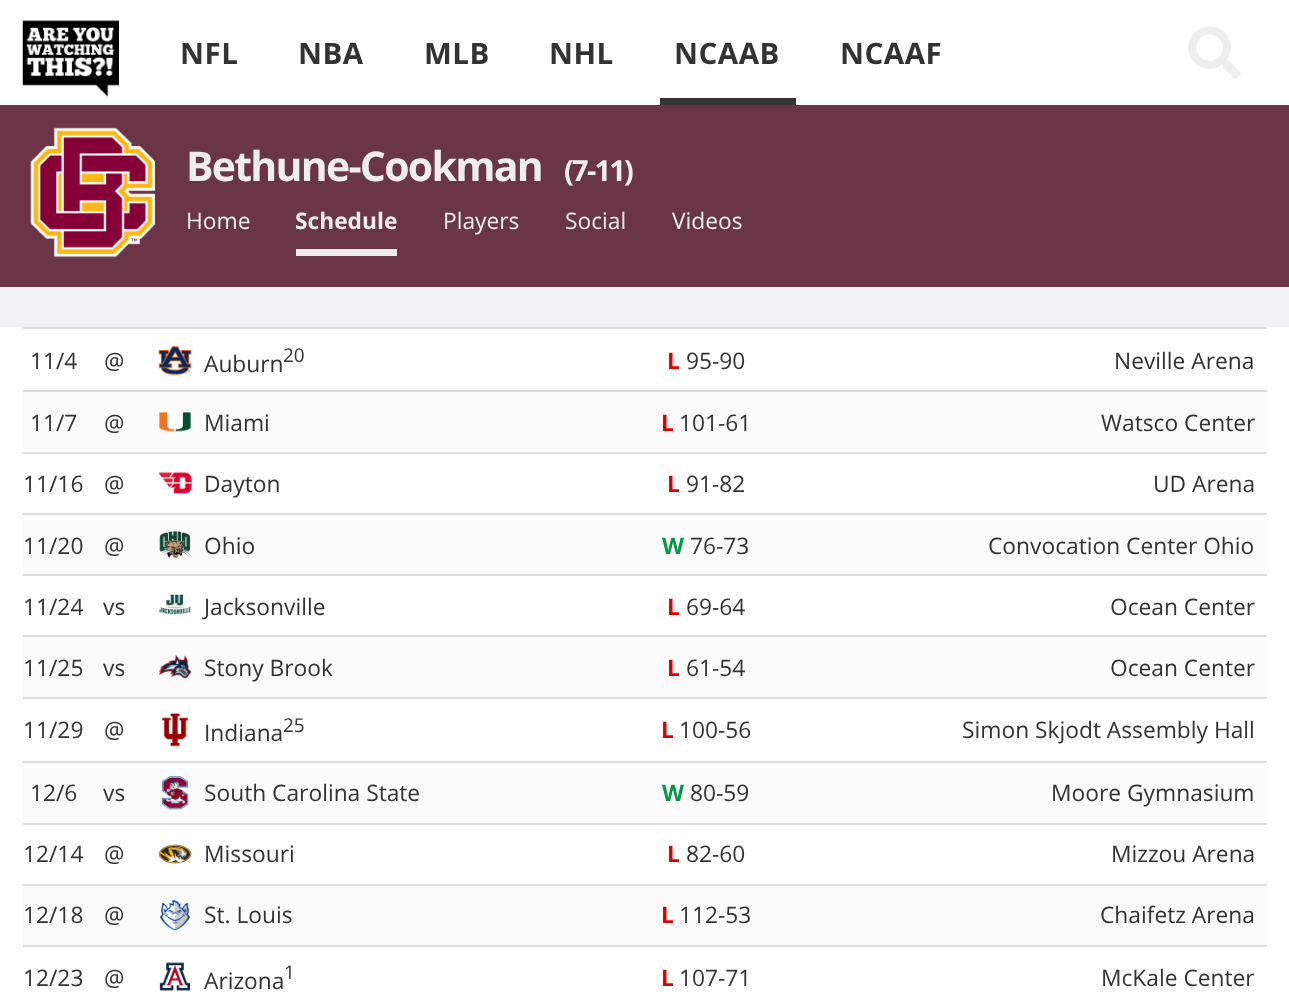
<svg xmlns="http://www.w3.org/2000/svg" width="1289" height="1004">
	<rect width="100%" height="100%" fill="#F1F2F3" />
	<rect x="0" y="0" width="1289" height="105" fill="#FFFFFF" />
	<image x="22" y="20" width="97" height="77" href="assets/img1.png" />
	<g font-family="Open Sans" font-size="29.5" font-weight="700" letter-spacing="0.5" fill="#333333">
		<text x="180" y="64">NFL</text>
		<text x="298" y="64">NBA</text>
		<text x="424" y="64">MLB</text>
		<text x="549" y="64">NHL</text>
	</g>
	<rect x="660" y="98" width="136" height="7" fill="#333333" />
	<g font-family="Open Sans" font-size="29.5" font-weight="700" letter-spacing="0.5" fill="#333333">
		<text x="674" y="64">NCAAB</text>
		<text x="840" y="64">NCAAF</text>
	</g>
	<image x="1188" y="26" width="53" height="53" href="assets/img2.png" />
	<rect x="0" y="105" width="1289" height="182" fill="#6A3547" />
	<image x="30" y="127" width="126" height="131" href="assets/img3.png" />
	<text x="186" y="181" font-family="Open Sans" font-size="41" font-weight="700" letter-spacing="-1.75" fill="#EEEEEE">Bethune-Cookman</text>
	<text x="564" y="181" font-family="Open Sans" font-size="29" font-weight="700" letter-spacing="-1.75" fill="#EEEEEE">(7-11)</text>
	<text x="186" y="229" font-family="Open Sans" font-size="22.75" fill="#EEEEEE">Home</text>
	<rect x="296" y="249" width="101" height="7" fill="#EEEEEE" />
	<text x="295" y="229" font-family="Open Sans" font-size="22.75" font-weight="700" fill="#EEEEEE">Schedule</text>
	<g font-family="Open Sans" font-size="22.75" fill="#EEEEEE">
		<text x="443" y="229">Players</text>
		<text x="565" y="229">Social</text>
		<text x="672" y="229">Videos</text>
	</g>
	<rect x="0" y="327" width="1289" height="677" fill="#FFFFFF" />
	<rect x="23" y="327" width="1244" height="2" fill="#DDDDDD" />
	<rect x="23" y="390" width="1244" height="2" fill="#DDDDDD" />
	<g font-family="Open Sans" font-size="22.75" fill="#333333">
		<text x="30" y="369">11/4</text>
		<text x="104" y="369">@</text>
	</g>
	<image x="158" y="345" width="34" height="31" href="assets/img4.png" />
	<text x="204" y="372" font-family="Open Sans" font-size="22.75" fill="#333333">Auburn</text>
	<text x="283" y="362" font-family="Open Sans" font-size="19" fill="#333333">20</text>
	<text x="667" y="369" font-family="Open Sans" font-size="22.75" font-weight="700" fill="#DD0000">L</text>
	<g font-family="Open Sans" font-size="22.75" fill="#333333">
		<text x="686" y="369">95-90</text>
		<text x="1114" y="369">Neville Arena</text>
	</g>
	<rect x="23" y="392" width="1244" height="60" fill="#FBFBFB" />
	<rect x="23" y="452" width="1244" height="2" fill="#DDDDDD" />
	<g font-family="Open Sans" font-size="22.75" fill="#333333">
		<text x="30" y="431">11/7</text>
		<text x="104" y="431">@</text>
	</g>
	<image x="159" y="412" width="32" height="20" href="assets/img5.png" />
	<text x="204" y="431" font-family="Open Sans" font-size="22.75" fill="#333333">Miami</text>
	<text x="661" y="431" font-family="Open Sans" font-size="22.75" font-weight="700" fill="#DD0000">L</text>
	<g font-family="Open Sans" font-size="22.75" fill="#333333">
		<text x="679" y="431">101-61</text>
		<text x="1101" y="431">Watsco Center</text>
	</g>
	<rect x="23" y="513" width="1244" height="2" fill="#DDDDDD" />
	<g font-family="Open Sans" font-size="22.75" fill="#333333">
		<text x="23" y="492">11/16</text>
		<text x="104" y="492">@</text>
	</g>
	<image x="158" y="472" width="34" height="22" href="assets/img6.png" />
	<text x="204" y="492" font-family="Open Sans" font-size="22.75" fill="#333333">Dayton</text>
	<text x="667" y="492" font-family="Open Sans" font-size="22.75" font-weight="700" fill="#DD0000">L</text>
	<g font-family="Open Sans" font-size="22.75" fill="#333333">
		<text x="686" y="492">91-82</text>
		<text x="1153" y="492">UD Arena</text>
	</g>
	<rect x="23" y="515" width="1244" height="59" fill="#FBFBFB" />
	<rect x="23" y="574" width="1244" height="2" fill="#DDDDDD" />
	<g font-family="Open Sans" font-size="22.75" fill="#333333">
		<text x="23" y="554">11/20</text>
		<text x="104" y="554">@</text>
	</g>
	<image x="159" y="531" width="32" height="28" href="assets/img7.png" />
	<text x="204" y="554" font-family="Open Sans" font-size="22.75" fill="#333333">Ohio</text>
	<text x="662" y="554" font-family="Open Sans" font-size="22.75" font-weight="700" fill="#009944">W</text>
	<g font-family="Open Sans" font-size="22.75" fill="#333333">
		<text x="690" y="554">76-73</text>
		<text x="988" y="554">Convocation Center Ohio</text>
	</g>
	<rect x="23" y="635" width="1244" height="2" fill="#DDDDDD" />
	<g font-family="Open Sans" font-size="22.75" fill="#333333">
		<text x="23" y="615">11/24</text>
		<text x="103" y="615">vs</text>
	</g>
	<image x="159" y="594" width="32" height="21" href="assets/img8.png" />
	<text x="204" y="615" font-family="Open Sans" font-size="22.75" fill="#333333">Jacksonville</text>
	<text x="667" y="615" font-family="Open Sans" font-size="22.75" font-weight="700" fill="#DD0000">L</text>
	<g font-family="Open Sans" font-size="22.75" fill="#333333">
		<text x="686" y="615">69-64</text>
		<text x="1110" y="615">Ocean Center</text>
	</g>
	<rect x="23" y="637" width="1244" height="60" fill="#FBFBFB" />
	<rect x="23" y="697" width="1244" height="2" fill="#DDDDDD" />
	<g font-family="Open Sans" font-size="22.75" fill="#333333">
		<text x="23" y="676">11/25</text>
		<text x="103" y="676">vs</text>
	</g>
	<image x="158" y="655" width="34" height="24" href="assets/img9.png" />
	<text x="204" y="676" font-family="Open Sans" font-size="22.75" fill="#333333">Stony Brook</text>
	<text x="667" y="676" font-family="Open Sans" font-size="22.75" font-weight="700" fill="#DD0000">L</text>
	<g font-family="Open Sans" font-size="22.75" fill="#333333">
		<text x="686" y="676">61-54</text>
		<text x="1110" y="676">Ocean Center</text>
	</g>
	<rect x="23" y="761" width="1244" height="2" fill="#DDDDDD" />
	<g font-family="Open Sans" font-size="22.75" fill="#333333">
		<text x="23" y="738">11/29</text>
		<text x="104" y="738">@</text>
	</g>
	<image x="161" y="713" width="28" height="34" href="assets/img10.png" />
	<text x="204" y="741" font-family="Open Sans" font-size="22.75" fill="#333333">Indiana</text>
	<text x="283" y="732" font-family="Open Sans" font-size="19" fill="#333333">25</text>
	<text x="661" y="738" font-family="Open Sans" font-size="22.75" font-weight="700" fill="#DD0000">L</text>
	<g font-family="Open Sans" font-size="22.75" fill="#333333">
		<text x="679" y="738">100-56</text>
		<text x="962" y="738">Simon Skjodt Assembly Hall</text>
	</g>
	<rect x="23" y="763" width="1244" height="60" fill="#FBFBFB" />
	<rect x="23" y="823" width="1244" height="2" fill="#DDDDDD" />
	<g font-family="Open Sans" font-size="22.75" fill="#333333">
		<text x="30" y="801">12/6</text>
		<text x="103" y="801">vs</text>
	</g>
	<image x="161" y="776" width="28" height="34" href="assets/img11.png" />
	<text x="204" y="801" font-family="Open Sans" font-size="22.75" fill="#333333">South Carolina State</text>
	<text x="662" y="801" font-family="Open Sans" font-size="22.75" font-weight="700" fill="#009944">W</text>
	<g font-family="Open Sans" font-size="22.75" fill="#333333">
		<text x="690" y="801">80-59</text>
		<text x="1051" y="801">Moore Gymnasium</text>
	</g>
	<rect x="23" y="884" width="1244" height="2" fill="#DDDDDD" />
	<g font-family="Open Sans" font-size="22.75" fill="#333333">
		<text x="23" y="862">12/14</text>
		<text x="104" y="862">@</text>
	</g>
	<image x="158" y="844" width="34" height="20" href="assets/img12.png" />
	<text x="204" y="862" font-family="Open Sans" font-size="22.75" fill="#333333">Missouri</text>
	<text x="667" y="862" font-family="Open Sans" font-size="22.75" font-weight="700" fill="#DD0000">L</text>
	<g font-family="Open Sans" font-size="22.75" fill="#333333">
		<text x="686" y="862">82-60</text>
		<text x="1111" y="862">Mizzou Arena</text>
	</g>
	<rect x="23" y="886" width="1244" height="59" fill="#FBFBFB" />
	<rect x="23" y="945" width="1244" height="2" fill="#DDDDDD" />
	<g font-family="Open Sans" font-size="22.75" fill="#333333">
		<text x="23" y="923">12/18</text>
		<text x="104" y="923">@</text>
	</g>
	<image x="160" y="900" width="30" height="31" href="assets/img13.png" />
	<text x="204" y="923" font-family="Open Sans" font-size="22.75" fill="#333333">St. Louis</text>
	<text x="661" y="923" font-family="Open Sans" font-size="22.75" font-weight="700" fill="#DD0000">L</text>
	<g font-family="Open Sans" font-size="22.75" fill="#333333">
		<text x="679" y="923">112-53</text>
		<text x="1100" y="923">Chaifetz Arena</text>
		<text x="23" y="986">12/23</text>
		<text x="104" y="986">@</text>
	</g>
	<image x="159" y="962" width="32" height="29" href="assets/img14.png" />
	<text x="204" y="989" font-family="Open Sans" font-size="22.75" fill="#333333">Arizona</text>
	<text x="284" y="979" font-family="Open Sans" font-size="19" fill="#333333">1</text>
	<text x="661" y="986" font-family="Open Sans" font-size="22.75" font-weight="700" fill="#DD0000">L</text>
	<g font-family="Open Sans" font-size="22.75" fill="#333333">
		<text x="679" y="986">107-71</text>
		<text x="1101" y="986">McKale Center</text>
	</g>
</svg>
